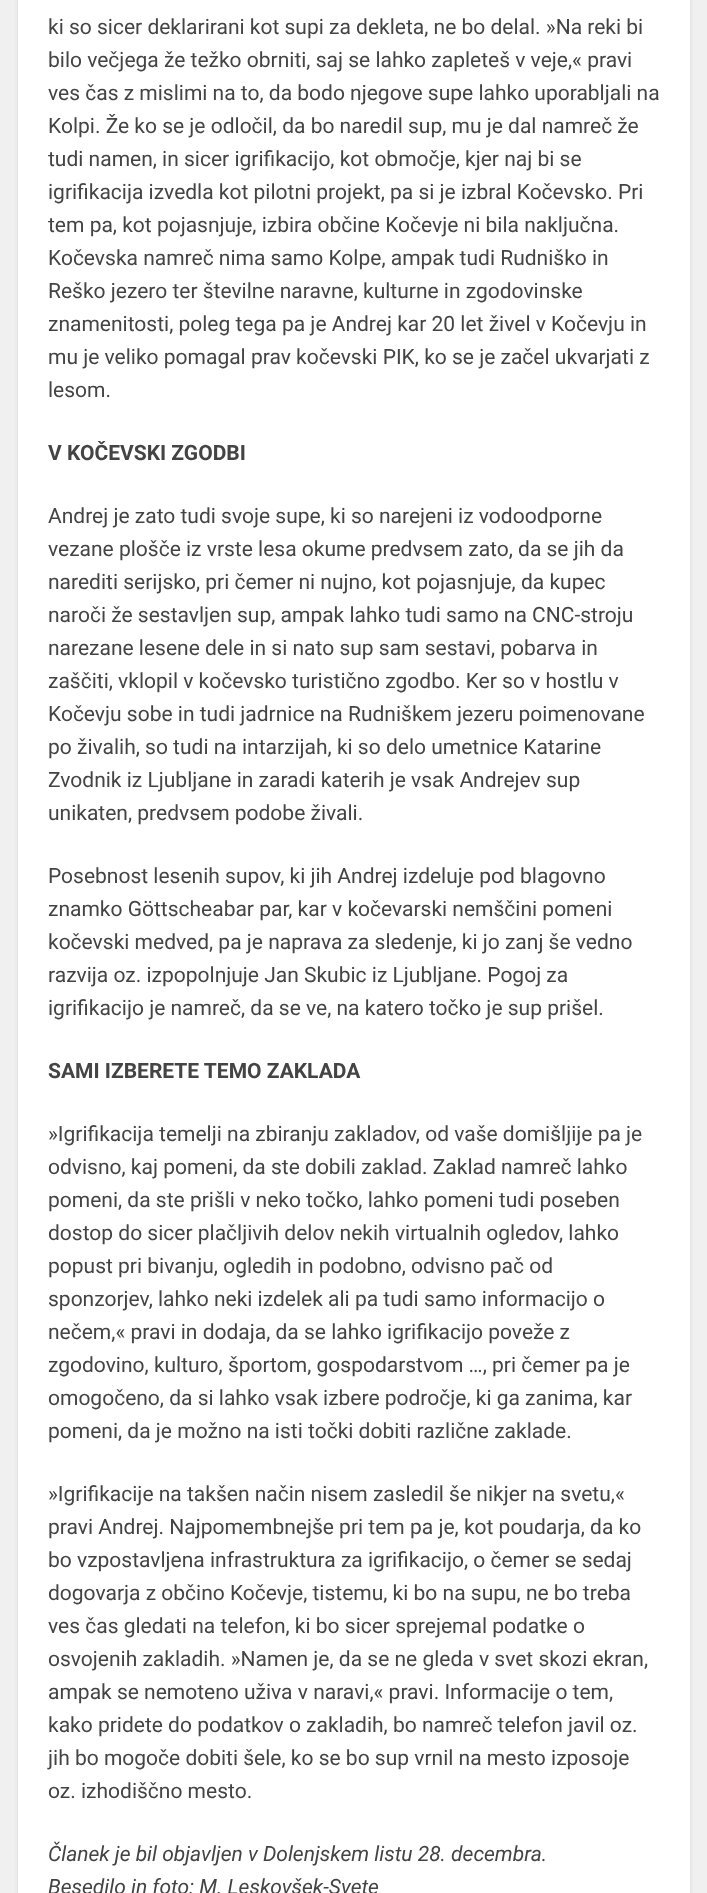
<svg xmlns="http://www.w3.org/2000/svg" width="707" height="1893">
	<rect width="100%" height="100%" fill="#F0F0F0" />
	<rect x="18" y="-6" width="672" height="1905" fill="#000000" fill-opacity="0.1" filter="blur(2px)" />
	<rect x="18" y="0" width="672" height="1893" fill="#FFFFFF" />
	<g font-family="Roboto" font-size="21" fill="#444444">
		<text x="48" y="34">ki so sicer deklarirani kot supi za dekleta, ne bo delal. »Na reki bi</text>
		<text x="48" y="67">bilo večjega že težko obrniti, saj se lahko zapleteš v veje,« pravi</text>
		<text x="48" y="100">ves čas z mislimi na to, da bodo njegove supe lahko uporabljali na</text>
		<text x="48" y="133">Kolpi. Že ko se je odločil, da bo naredil sup, mu je dal namreč že</text>
		<text x="48" y="166">tudi namen, in sicer igrifikacijo, kot območje, kjer naj bi se</text>
		<text x="48" y="199">igrifikacija izvedla kot pilotni projekt, pa si je izbral Kočevsko. Pri</text>
		<text x="48" y="232">tem pa, kot pojasnjuje, izbira občine Kočevje ni bila naključna.</text>
		<text x="48" y="265">Kočevska namreč nima samo Kolpe, ampak tudi Rudniško in</text>
		<text x="48" y="298">Reško jezero ter številne naravne, kulturne in zgodovinske</text>
		<text x="48" y="331">znamenitosti, poleg tega pa je Andrej kar 20 let živel v Kočevju in</text>
		<text x="48" y="364">mu je veliko pomagal prav kočevski PIK, ko se je začel ukvarjati z</text>
		<text x="48" y="397">lesom.</text>
	</g>
	<text x="48" y="460" font-family="Roboto" font-size="21" font-weight="700" fill="#444444">V KOČEVSKI ZGODBI</text>
	<g font-family="Roboto" font-size="21" fill="#444444">
		<text x="48" y="523">Andrej je zato tudi svoje supe, ki so narejeni iz vodoodporne</text>
		<text x="48" y="556">vezane plošče iz vrste lesa okume predvsem zato, da se jih da</text>
		<text x="48" y="589">narediti serijsko, pri čemer ni nujno, kot pojasnjuje, da kupec</text>
		<text x="48" y="622">naroči že sestavljen sup, ampak lahko tudi samo na CNC-stroju</text>
		<text x="48" y="655">narezane lesene dele in si nato sup sam sestavi, pobarva in</text>
		<text x="48" y="688">zaščiti, vklopil v kočevsko turistično zgodbo. Ker so v hostlu v</text>
		<text x="48" y="721">Kočevju sobe in tudi jadrnice na Rudniškem jezeru poimenovane</text>
		<text x="48" y="754">po živalih, so tudi na intarzijah, ki so delo umetnice Katarine</text>
		<text x="48" y="787">Zvodnik iz Ljubljane in zaradi katerih je vsak Andrejev sup</text>
		<text x="48" y="820">unikaten, predvsem podobe živali.</text>
		<text x="48" y="883">Posebnost lesenih supov, ki jih Andrej izdeluje pod blagovno</text>
		<text x="48" y="916">znamko Göttscheabar par, kar v kočevarski nemščini pomeni</text>
		<text x="48" y="949">kočevski medved, pa je naprava za sledenje, ki jo zanj še vedno</text>
		<text x="48" y="982">razvija oz. izpopolnjuje Jan Skubic iz Ljubljane. Pogoj za</text>
		<text x="48" y="1015">igrifikacijo je namreč, da se ve, na katero točko je sup prišel.</text>
	</g>
	<text x="48" y="1078" font-family="Roboto" font-size="21" font-weight="700" fill="#444444">SAMI IZBERETE TEMO ZAKLADA</text>
	<g font-family="Roboto" font-size="21" fill="#444444">
		<text x="48" y="1141">»Igrifikacija temelji na zbiranju zakladov, od vaše domišljije pa je</text>
		<text x="48" y="1174">odvisno, kaj pomeni, da ste dobili zaklad. Zaklad namreč lahko</text>
		<text x="48" y="1207">pomeni, da ste prišli v neko točko, lahko pomeni tudi poseben</text>
		<text x="48" y="1240">dostop do sicer plačljivih delov nekih virtualnih ogledov, lahko</text>
		<text x="48" y="1273">popust pri bivanju, ogledih in podobno, odvisno pač od</text>
		<text x="48" y="1306">sponzorjev, lahko neki izdelek ali pa tudi samo informacijo o</text>
		<text x="48" y="1339">nečem,« pravi in dodaja, da se lahko igrifikacijo poveže z</text>
		<text x="48" y="1372">zgodovino, kulturo, športom, gospodarstvom …, pri čemer pa je</text>
		<text x="48" y="1405">omogočeno, da si lahko vsak izbere področje, ki ga zanima, kar</text>
		<text x="48" y="1438">pomeni, da je možno na isti točki dobiti različne zaklade.</text>
		<text x="48" y="1501">»Igrifikacije na takšen način nisem zasledil še nikjer na svetu,«</text>
		<text x="48" y="1534">pravi Andrej. Najpomembnejše pri tem pa je, kot poudarja, da ko</text>
		<text x="48" y="1567">bo vzpostavljena infrastruktura za igrifikacijo, o čemer se sedaj</text>
		<text x="48" y="1600">dogovarja z občino Kočevje, tistemu, ki bo na supu, ne bo treba</text>
		<text x="48" y="1633">ves čas gledati na telefon, ki bo sicer sprejemal podatke o</text>
		<text x="48" y="1666">osvojenih zakladih. »Namen je, da se ne gleda v svet skozi ekran,</text>
		<text x="48" y="1699">ampak se nemoteno uživa v naravi,« pravi. Informacije o tem,</text>
		<text x="48" y="1732">kako pridete do podatkov o zakladih, bo namreč telefon javil oz.</text>
		<text x="48" y="1765">jih bo mogoče dobiti šele, ko se bo sup vrnil na mesto izposoje</text>
		<text x="48" y="1798">oz. izhodiščno mesto.</text>
	</g>
	<g font-family="Roboto" font-size="21" font-style="italic" fill="#444444">
		<text x="48" y="1861">Članek je bil objavljen v Dolenjskem listu 28. decembra.</text>
		<text x="48" y="1894">Besedilo in foto: M. Leskovšek-Svete</text>
	</g>
</svg>
